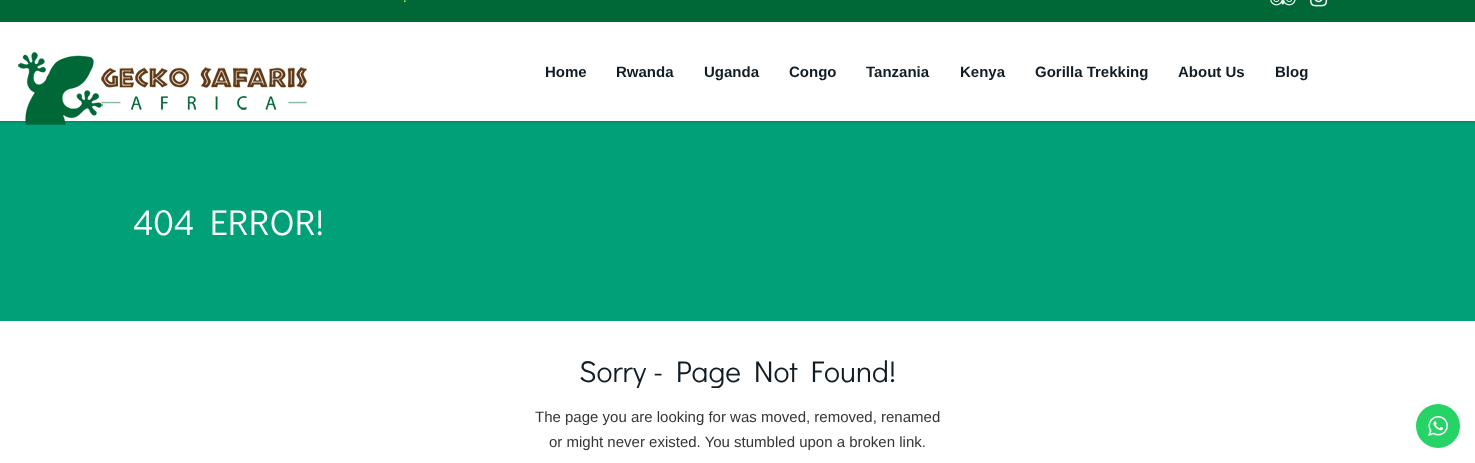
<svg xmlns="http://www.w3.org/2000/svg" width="1475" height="463">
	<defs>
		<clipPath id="clip1"><rect x="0" y="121" width="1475" height="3" /></clipPath>
	</defs>
	<rect width="100%" height="100%" fill="#FFFFFF" />
	<rect x="0" y="121" width="1475" height="200" fill="#00A078" />
	<g clip-path="url(#clip1)">
		<rect x="0" y="23" width="1475" height="99" fill="#000000" fill-opacity="0.2" filter="blur(1.5px)" />
	</g>
	<rect x="0" y="0" width="1475" height="22" fill="#006837" />
	<text x="403" y="2" font-family="Liberation Sans" font-size="13" fill="#FFFF00">.</text>
	<image x="1270" y="0" width="26" height="6" href="assets/img1.png" />
	<image x="1310" y="0" width="18" height="7" href="assets/img2.png" />
	<image x="18" y="52" width="289" height="73" href="assets/img3.png" />
	<g font-family="Liberation Sans" font-size="15" font-weight="700" fill="#111C24">
		<text x="545" y="77">Home</text>
		<text x="616" y="77">Rwanda</text>
		<text x="704" y="77">Uganda</text>
		<text x="789" y="77">Congo</text>
		<text x="866" y="77">Tanzania</text>
		<text x="960" y="77">Kenya</text>
		<text x="1035" y="77">Gorilla Trekking</text>
		<text x="1178" y="77">About Us</text>
		<text x="1275" y="77">Blog</text>
	</g>
	<text x="133" y="235" font-family="Didact Gothic" font-size="36" fill="#FFFFFF">404 ERROR!</text>
	<text x="579" y="382" font-family="Didact Gothic" font-size="30" fill="#111C24">Sorry - Page Not Found!</text>
	<g font-family="Liberation Sans" font-size="15" fill="#353535">
		<text x="535" y="422">The page you are looking for was moved, removed, renamed</text>
		<text x="549" y="447">or might never existed. You stumbled upon a broken link.</text>
	</g>
	<circle cx="1438" cy="426" r="22" fill="#25D366" />
	<image x="1428" y="416" width="20" height="20" href="assets/img4.png" />
</svg>
